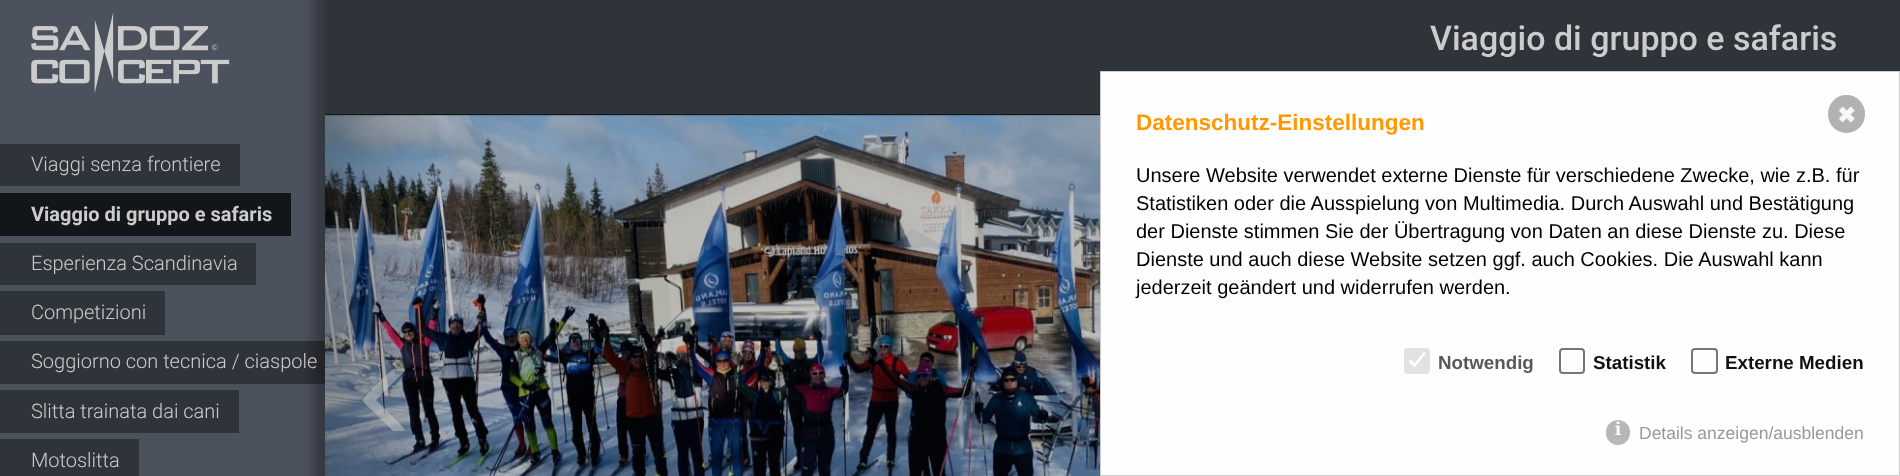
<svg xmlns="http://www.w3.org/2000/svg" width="1900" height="476">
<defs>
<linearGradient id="g1" gradientUnits="userSpaceOnUse" x1="325" y1="379" x2="450" y2="379"><stop offset="0" stop-color="#000" stop-opacity="0.25"/><stop offset="1" stop-color="#000" stop-opacity="0"/></linearGradient>
</defs>
<rect width="100%" height="100%" fill="#4c525d"/>
<rect y="341" width="325" height="43" fill="#2f343a"/>
<rect x="313" y="-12" width="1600" height="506" fill="#0000004d" filter="blur(6px)"/>
<rect x="325" width="1575" height="116" fill="#2f343a"/>
<text x="1430" y="50" style="font-family:Roboto;font-size:34px;font-weight:500;fill:#ccc">Viaggio di gruppo e safaris</text>
<rect x="325" y="114" width="775" height="1" fill="#131618"/>
<image x="325" y="115" width="775" height="361" href="media/1.png"/>
<rect x="325" y="115" width="114" height="361" fill="url(#g1)"/>
<path d="M394 369c11 0 15-3 6 7l-24 24l24 24c5 6 8 7 0 7h-7l-20-20c-2-2-11-9-10-11c0-2 8-9 10-11c2-3 19-20 21-20z" fill="#cccccc80"/>
<image x="31" y="13" width="199" height="81" href="media/2.png"/>
<rect y="144" width="240" height="42" fill="#2f343a"/>
<text x="31" y="171" style="font-family:Roboto;font-size:20px;font-weight:300;fill:#ccc">Viaggi senza frontiere</text>
<rect y="193" width="291" height="43" fill="#131618"/>
<text x="31" y="221" style="font-family:Roboto;font-size:20px;font-weight:bold;fill:#ccc">Viaggio di gruppo e safaris</text>
<rect y="243" width="256" height="42" fill="#2f343a"/>
<text x="31" y="270" style="font-family:Roboto;font-size:20px;font-weight:300;fill:#ccc">Esperienza Scandinavia</text>
<rect y="291" width="165" height="44" fill="#2f343a"/>
<text x="31" y="319" style="font-family:Roboto;font-size:20px;font-weight:300;fill:#ccc">Competizioni</text>
<text x="31" y="368" style="font-family:Roboto;font-size:20px;font-weight:300;fill:#ccc">Soggiorno con tecnica / ciaspole</text>
<rect y="390" width="239" height="43" fill="#2f343a"/>
<text x="31" y="418" style="font-family:Roboto;font-size:20px;font-weight:300;fill:#ccc">Slitta trainata dai cani</text>
<rect y="439" width="139" height="37" fill="#2f343a"/>
<text x="31" y="467" style="font-family:Roboto;font-size:20px;font-weight:300;fill:#ccc">Motoslitta</text>
<rect x="1100.5" y="71.5" width="799" height="404" fill="#fefefe" stroke="#cbcbcb"/>
<rect x="1829.5" y="96.5" width="34" height="35" rx="17" fill="#b2b2b2" stroke="#b2b2b2" stroke-width="3"/>
<text x="1837" y="123" style="font-family:DejaVu Sans;font-size:22.5px;font-weight:bold;fill:#f6f6f6">✖</text>
<text x="1136" y="130" style="font-family:Liberation Sans;font-size:22.5px;font-weight:bold;fill:#f90">Datenschutz-Einstellungen</text>
<text x="1136" y="182" style="font-family:Liberation Sans;font-size:20px;fill:#000">Unsere Website verwendet externe Dienste für verschiedene Zwecke, wie z.B. für</text>
<text x="1136" y="210" style="font-family:Liberation Sans;font-size:20px;fill:#000">Statistiken oder die Ausspielung von Multimedia. Durch Auswahl und Bestätigung</text>
<text x="1136" y="238" style="font-family:Liberation Sans;font-size:20px;fill:#000">der Dienste stimmen Sie der Übertragung von Daten an diese Dienste zu. Diese</text>
<text x="1136" y="266" style="font-family:Liberation Sans;font-size:20px;fill:#000">Dienste und auch diese Website setzen ggf. auch Cookies. Die Auswahl kann</text>
<text x="1136" y="294" style="font-family:Liberation Sans;font-size:20px;fill:#000">jederzeit geändert und widerrufen werden.</text>
<rect x="1404" y="348" width="26" height="26" rx="4" fill="#e2e2e2"/>
<path d="M1409.5 360.5l5 5l10.5-13" fill="none" stroke="#fff" stroke-width="2.6"/>
<text x="1438" y="369" style="font-family:Liberation Sans;font-size:18.75px;font-weight:bold;fill:#585858">Notwendig</text>
<rect x="1560" y="349" width="24" height="24" rx="3" fill="none" stroke="#767676" stroke-width="2"/>
<text x="1593" y="369" style="font-family:Liberation Sans;font-size:18.75px;font-weight:bold;fill:#111">Statistik</text>
<rect x="1692" y="349" width="25" height="24" rx="3" fill="none" stroke="#767676" stroke-width="2"/>
<text x="1725" y="369" style="font-family:Liberation Sans;font-size:18.75px;font-weight:bold;fill:#111">Externe Medien</text>
<rect x="1606" y="420" width="24" height="25" rx="12" fill="#b7b7b7"/>
<text x="1615" y="435" style="font-family:Noto Serif;font-size:17.5px;font-weight:bold;fill:#fefefe">i</text>
<text x="1639" y="439" style="font-family:Liberation Sans;font-size:17.5px;fill:#999">Details anzeigen/ausblenden</text>
</svg>
